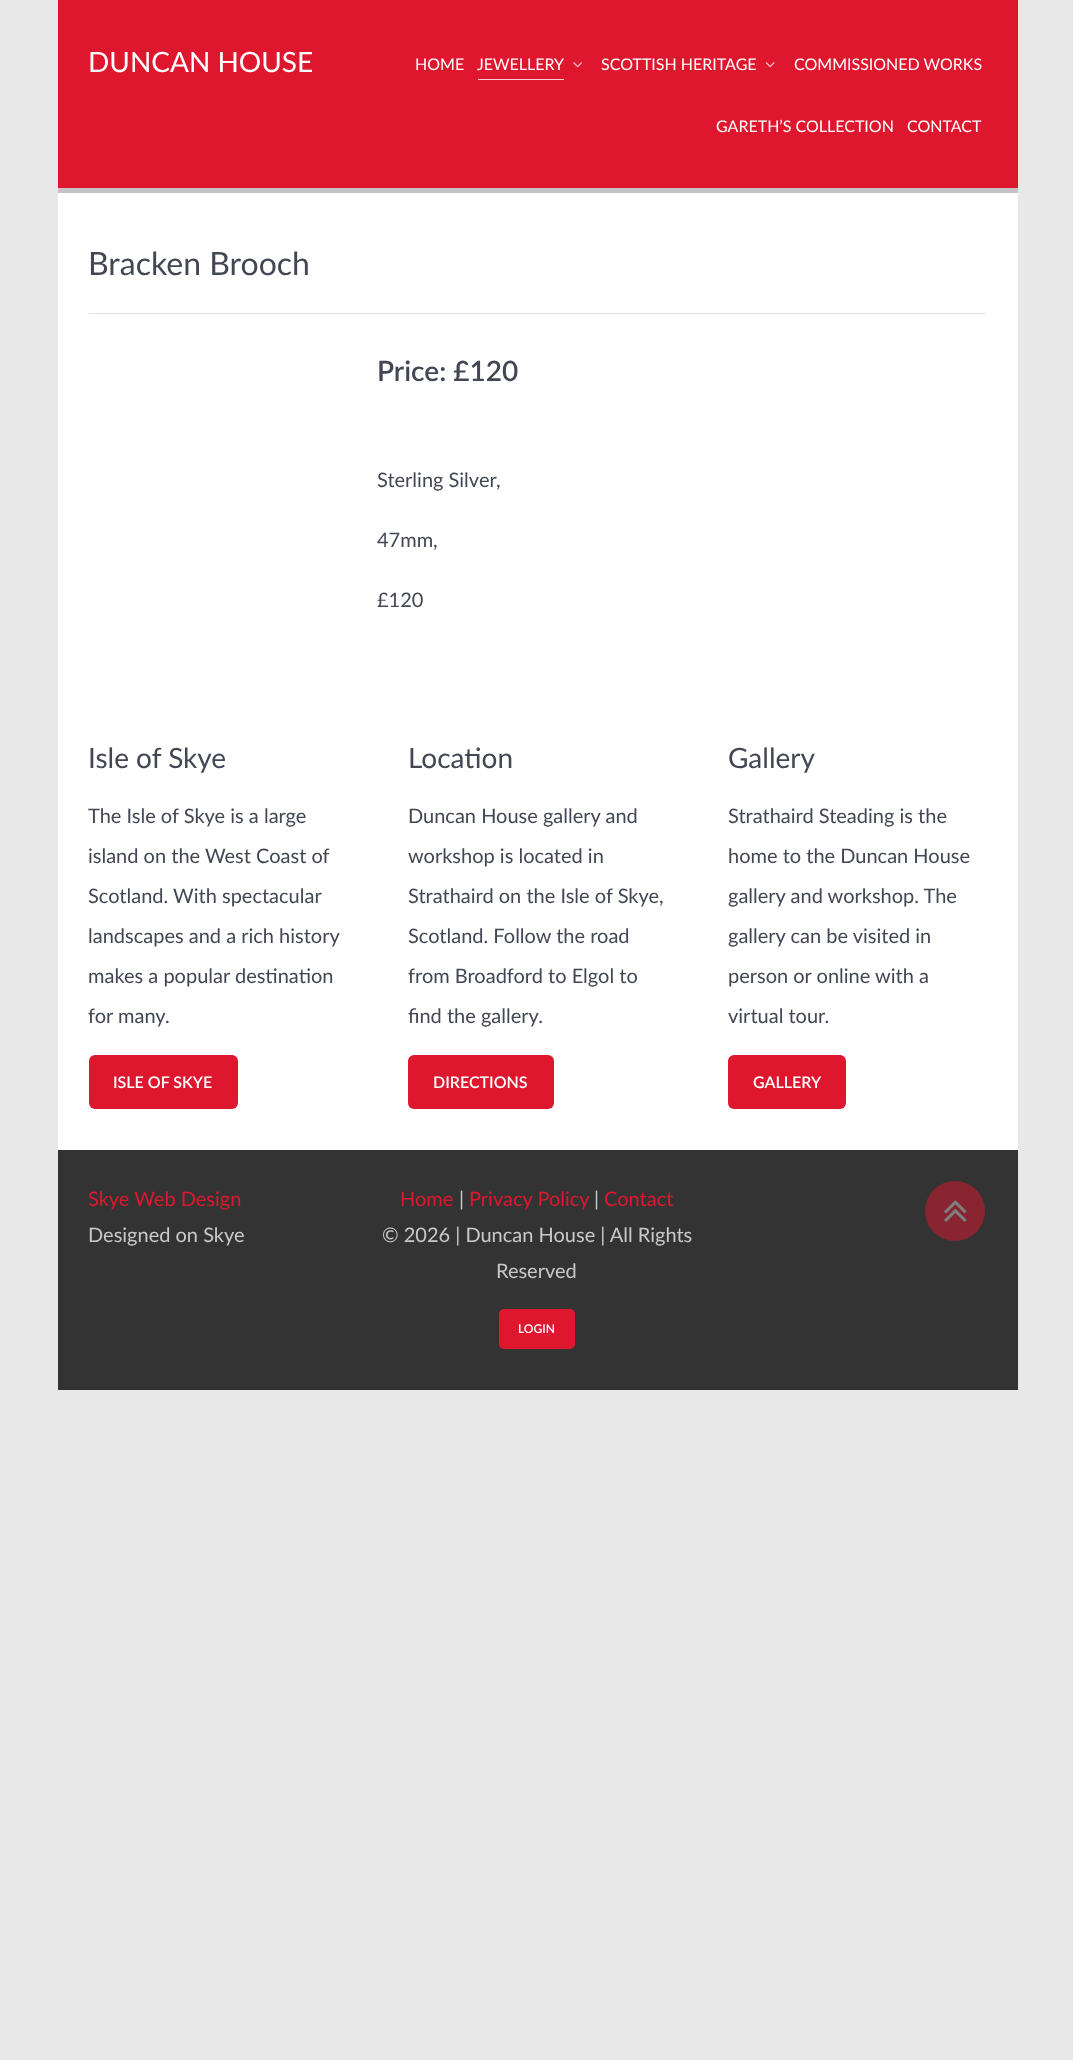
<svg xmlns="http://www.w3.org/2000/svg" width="1073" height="2060">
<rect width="100%" height="100%" fill="#e8e8e8"/>
<rect x="58" width="960" height="188" fill="#df172e"/>
<rect x="58" y="188" width="960" height="5" fill="#c3c3c3"/>
<text x="88" y="72" style="font-family:Lato;font-size:28px;fill:#fff">DUNCAN HOUSE</text>
<text x="415" y="70" style="font-family:Lato;font-size:16px;fill:#fff">HOME</text>
<path d="M478 79v1h86v-25v24z" fill="#f9d1d5"/>
<text x="477" y="70" style="font-family:Lato;font-size:16px;fill:#fff">JEWELLERY</text>
<image x="573" y="62" width="9" height="6" href="media/1.png"/>
<text x="601" y="70" style="font-family:Lato;font-size:16px;fill:#fff">SCOTTISH HERITAGE</text>
<image x="765" y="62" width="10" height="6" href="media/2.png"/>
<text x="794" y="70" style="font-family:Lato;font-size:16px;fill:#fff">COMMISSIONED WORKS</text>
<text x="716" y="132" style="font-family:Lato;font-size:16px;fill:#fff">GARETH’S COLLECTION</text>
<text x="907" y="132" style="font-family:Lato;font-size:16px;fill:#fff">CONTACT</text>
<rect x="58" y="193" width="960" height="957" fill="#fff"/>
<text x="88" y="275" style="font-family:Lato;font-size:32px;fill:#424753">Bracken Brooch</text>
<rect x="89" y="313" width="897" height="1" fill="#e0e0e5"/>
<text x="377" y="381" style="font-family:Lato;font-size:28px;font-weight:600;fill:#424753">Price: £120</text>
<text x="377" y="487" style="font-family:Lato;font-size:20px;fill:#424753">Sterling Silver,</text>
<text x="377" y="547" style="font-family:Lato;font-size:20px;fill:#424753">47mm,</text>
<text x="377" y="607" style="font-family:Lato;font-size:20px;fill:#424753">£120</text>
<text x="88" y="768" style="font-family:Lato;font-size:28px;fill:#424753">Isle of Skye</text>
<text x="88" y="823" style="font-family:Lato;font-size:20px;fill:#424753">The Isle of Skye is a large</text>
<text x="88" y="863" style="font-family:Lato;font-size:20px;fill:#424753">island on the West Coast of</text>
<text x="88" y="903" style="font-family:Lato;font-size:20px;fill:#424753">Scotland. With spectacular</text>
<text x="88" y="943" style="font-family:Lato;font-size:20px;fill:#424753">landscapes and a rich history</text>
<text x="88" y="983" style="font-family:Lato;font-size:20px;fill:#424753">makes a popular destination</text>
<text x="88" y="1023" style="font-family:Lato;font-size:20px;fill:#424753">for many.</text>
<rect x="89" y="1055" width="149" height="54" rx="6" fill="#df172e"/>
<text x="113" y="1088" style="font-family:Lato;font-size:16px;font-weight:600;fill:#fff">ISLE OF SKYE</text>
<text x="408" y="768" style="font-family:Lato;font-size:28px;fill:#424753">Location</text>
<text x="408" y="823" style="font-family:Lato;font-size:20px;fill:#424753">Duncan House gallery and</text>
<text x="408" y="863" style="font-family:Lato;font-size:20px;fill:#424753">workshop is located in</text>
<text x="408" y="903" style="font-family:Lato;font-size:20px;fill:#424753">Strathaird on the Isle of Skye,</text>
<text x="408" y="943" style="font-family:Lato;font-size:20px;fill:#424753">Scotland. Follow the road</text>
<text x="408" y="983" style="font-family:Lato;font-size:20px;fill:#424753">from Broadford to Elgol to</text>
<text x="408" y="1023" style="font-family:Lato;font-size:20px;fill:#424753">find the gallery.</text>
<rect x="408" y="1055" width="146" height="54" rx="6" fill="#df172e"/>
<text x="433" y="1088" style="font-family:Lato;font-size:16px;font-weight:600;fill:#fff">DIRECTIONS</text>
<text x="728" y="768" style="font-family:Lato;font-size:28px;fill:#424753">Gallery</text>
<text x="728" y="823" style="font-family:Lato;font-size:20px;fill:#424753">Strathaird Steading is the</text>
<text x="728" y="863" style="font-family:Lato;font-size:20px;fill:#424753">home to the Duncan House</text>
<text x="728" y="903" style="font-family:Lato;font-size:20px;fill:#424753">gallery and workshop. The</text>
<text x="728" y="943" style="font-family:Lato;font-size:20px;fill:#424753">gallery can be visited in</text>
<text x="728" y="983" style="font-family:Lato;font-size:20px;fill:#424753">person or online with a</text>
<text x="728" y="1023" style="font-family:Lato;font-size:20px;fill:#424753">virtual tour.</text>
<rect x="728" y="1055" width="118" height="54" rx="6" fill="#df172e"/>
<text x="753" y="1088" style="font-family:Lato;font-size:16px;font-weight:600;fill:#fff">GALLERY</text>
<rect x="58" y="1150" width="960" height="240" fill="#333"/>
<text x="88" y="1206" style="font-family:Lato;font-size:20px;fill:#df172e">Skye Web Design</text>
<text x="88" y="1242" style="font-family:Lato;font-size:20px;fill:#c9c9c9">Designed on Skye</text>
<text x="400" y="1206" style="font-family:Lato;font-size:20px;fill:#df172e">Home</text>
<text x="459" y="1206" style="font-family:Lato;font-size:20px;fill:#c9c9c9">|</text>
<text x="469" y="1206" style="font-family:Lato;font-size:20px;fill:#df172e">Privacy Policy</text>
<text x="594" y="1206" style="font-family:Lato;font-size:20px;fill:#c9c9c9">|</text>
<text x="604" y="1206" style="font-family:Lato;font-size:20px;fill:#df172e">Contact</text>
<text x="382" y="1242" style="font-family:Lato;font-size:20px;fill:#c9c9c9">© 2026 | Duncan House | All Rights</text>
<text x="496" y="1278" style="font-family:Lato;font-size:20px;fill:#c9c9c9">Reserved</text>
<rect x="499" y="1309" width="76" height="40" rx="5" fill="#df172e"/>
<text x="518" y="1333" style="font-family:Lato;font-size:12px;font-weight:600;fill:#fff">LOGIN</text>
<circle cx="955" cy="1211" r="30" fill="#892531"/>
<image x="944" y="1200" width="23" height="22" href="media/3.png"/>
</svg>
